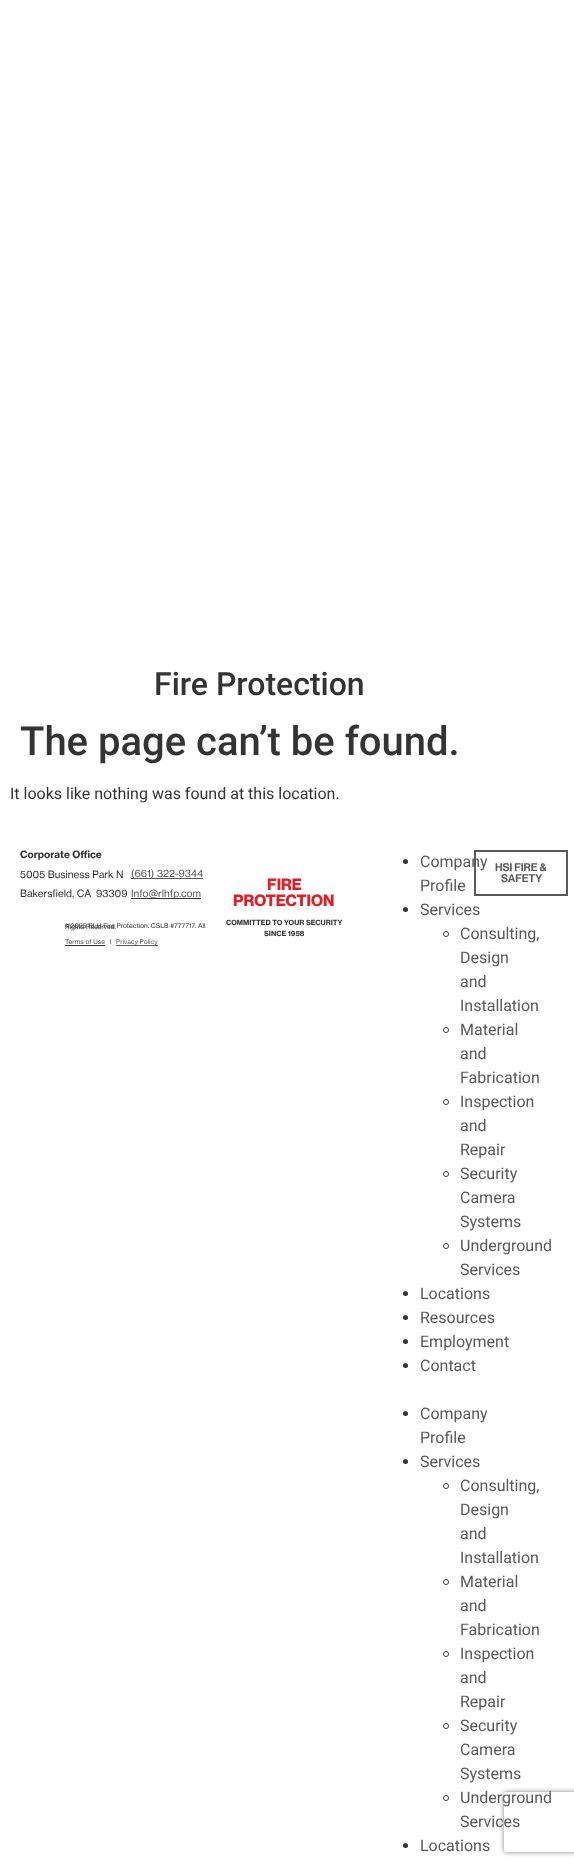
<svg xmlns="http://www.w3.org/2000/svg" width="574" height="1866">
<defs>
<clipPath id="clip1"><path d="M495 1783h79v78h-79zm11 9h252c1 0 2 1 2 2v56c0 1-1 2-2 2h-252c-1 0-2-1-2-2v-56c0-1 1-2 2-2z" clip-rule="evenodd"/></clipPath>
</defs>
<rect width="100%" height="100%" fill="#fff"/>
<text x="154" y="695" style="font-family:Roboto;font-size:32px;font-weight:500;fill:#333">Fire Protection</text>
<text x="20" y="755" style="font-family:Roboto;font-size:40px;font-weight:500;fill:#333">The page can’t be found.</text>
<text x="10" y="799" style="font-family:Roboto;font-size:16px;fill:#333">It looks like nothing was found at this location.</text>
<text x="20" y="858" style="font-family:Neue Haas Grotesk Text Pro;font-size:10px;font-weight:bold;fill:#333">Corporate Office</text>
<text x="20" y="878" style="font-family:Neue Haas Grotesk Text Pro;font-size:10px;fill:#333">5005 Business Park N</text>
<text x="20" y="897" style="font-family:Neue Haas Grotesk Text Pro;font-size:10px;fill:#333">Bakersfield, CA</text>
<text x="96" y="897" style="font-family:Neue Haas Grotesk Text Pro;font-size:10px;fill:#333">93309</text>
<rect x="131" y="878" width="72" height="1" fill="#58595b"/>
<text x="131" y="877" style="font-family:Neue Haas Grotesk Text Pro;font-size:10px;fill:#58595b">(661) 322-9344</text>
<rect x="131" y="898" width="70" height="1" fill="#333"/>
<text x="131" y="897" style="font-family:Neue Haas Grotesk Text Pro;font-size:10px;fill:#58595b">Info@rlhfp.com</text>
<text x="65" y="928" style="font-family:Neue Haas Grotesk Text Pro;font-size:6.5px;fill:#333">©2025 RLH Fire Protection. CSLB #777717. All</text>
<text x="65" y="929" style="font-family:Neue Haas Grotesk Text Pro;font-size:6.5px;fill:#333">Rights Reserved.</text>
<text x="65" y="944" style="font-family:Neue Haas Grotesk Text Pro;font-size:6.5px;fill:#58595b">Terms of Use</text>
<rect x="65" y="945" width="40" height="1" fill="#333"/>
<text x="110" y="944" style="font-family:Neue Haas Grotesk Text Pro;font-size:6.5px;fill:#333">l</text>
<rect x="116" y="945" width="42" height="1" fill="#58595b"/>
<text x="116" y="944" style="font-family:Neue Haas Grotesk Text Pro;font-size:6.5px;fill:#58595b">Privacy Policy</text>
<text x="267" y="890" style="font-family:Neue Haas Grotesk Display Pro;font-size:16px;font-weight:bold;fill:#e01f26">FIRE</text>
<text x="233" y="906" style="font-family:Neue Haas Grotesk Display Pro;font-size:16px;font-weight:bold;fill:#e01f26">PROTECTION</text>
<text x="226" y="925" style="font-family:Neue Haas Grotesk Text Pro;font-size:7px;font-weight:bold;fill:#333">COMMITTED TO YOUR SECURITY</text>
<text x="264" y="936" style="font-family:Neue Haas Grotesk Text Pro;font-size:7px;font-weight:bold;fill:#333">SINCE 1958</text>
<circle cx="405.5" cy="861.5" r="2.5" fill="#333"/>
<text x="420" y="867" style="font-family:Roboto;font-size:16px;fill:#58595b">Company</text>
<text x="420" y="891" style="font-family:Roboto;font-size:16px;fill:#58595b">Profile</text>
<circle cx="405.5" cy="909.5" r="2.5" fill="#333"/>
<text x="420" y="915" style="font-family:Roboto;font-size:16px;fill:#58595b">Services</text>
<circle cx="446" cy="934" r="2.5" fill="none" stroke="#333"/>
<text x="460" y="939" style="font-family:Roboto;font-size:16px;fill:#58595b">Consulting,</text>
<text x="460" y="963" style="font-family:Roboto;font-size:16px;fill:#58595b">Design</text>
<text x="460" y="987" style="font-family:Roboto;font-size:16px;fill:#58595b">and</text>
<text x="460" y="1011" style="font-family:Roboto;font-size:16px;fill:#58595b">Installation</text>
<circle cx="446" cy="1030" r="2.5" fill="none" stroke="#333"/>
<text x="460" y="1035" style="font-family:Roboto;font-size:16px;fill:#58595b">Material</text>
<text x="460" y="1059" style="font-family:Roboto;font-size:16px;fill:#58595b">and</text>
<text x="460" y="1083" style="font-family:Roboto;font-size:16px;fill:#58595b">Fabrication</text>
<circle cx="446" cy="1102" r="2.5" fill="none" stroke="#333"/>
<text x="460" y="1107" style="font-family:Roboto;font-size:16px;fill:#58595b">Inspection</text>
<text x="460" y="1131" style="font-family:Roboto;font-size:16px;fill:#58595b">and</text>
<text x="460" y="1155" style="font-family:Roboto;font-size:16px;fill:#58595b">Repair</text>
<circle cx="446" cy="1174" r="2.5" fill="none" stroke="#333"/>
<text x="460" y="1179" style="font-family:Roboto;font-size:16px;fill:#58595b">Security</text>
<text x="460" y="1203" style="font-family:Roboto;font-size:16px;fill:#58595b">Camera</text>
<text x="460" y="1227" style="font-family:Roboto;font-size:16px;fill:#58595b">Systems</text>
<circle cx="446" cy="1246" r="2.5" fill="none" stroke="#333"/>
<text x="460" y="1251" style="font-family:Roboto;font-size:16px;fill:#58595b">Underground</text>
<text x="460" y="1275" style="font-family:Roboto;font-size:16px;fill:#58595b">Services</text>
<circle cx="405.5" cy="1293.5" r="2.5" fill="#333"/>
<text x="420" y="1299" style="font-family:Roboto;font-size:16px;fill:#58595b">Locations</text>
<circle cx="405.5" cy="1317.5" r="2.5" fill="#333"/>
<text x="420" y="1323" style="font-family:Roboto;font-size:16px;fill:#58595b">Resources</text>
<circle cx="405.5" cy="1341.5" r="2.5" fill="#333"/>
<text x="420" y="1347" style="font-family:Roboto;font-size:16px;fill:#58595b">Employment</text>
<circle cx="405.5" cy="1365.5" r="2.5" fill="#333"/>
<text x="420" y="1371" style="font-family:Roboto;font-size:16px;fill:#58595b">Contact</text>
<circle cx="405.5" cy="1413.5" r="2.5" fill="#333"/>
<text x="420" y="1419" style="font-family:Roboto;font-size:16px;fill:#58595b">Company</text>
<text x="420" y="1443" style="font-family:Roboto;font-size:16px;fill:#58595b">Profile</text>
<circle cx="405.5" cy="1461.5" r="2.5" fill="#333"/>
<text x="420" y="1467" style="font-family:Roboto;font-size:16px;fill:#58595b">Services</text>
<circle cx="446" cy="1486" r="2.5" fill="none" stroke="#333"/>
<text x="460" y="1491" style="font-family:Roboto;font-size:16px;fill:#58595b">Consulting,</text>
<text x="460" y="1515" style="font-family:Roboto;font-size:16px;fill:#58595b">Design</text>
<text x="460" y="1539" style="font-family:Roboto;font-size:16px;fill:#58595b">and</text>
<text x="460" y="1563" style="font-family:Roboto;font-size:16px;fill:#58595b">Installation</text>
<circle cx="446" cy="1582" r="2.5" fill="none" stroke="#333"/>
<text x="460" y="1587" style="font-family:Roboto;font-size:16px;fill:#58595b">Material</text>
<text x="460" y="1611" style="font-family:Roboto;font-size:16px;fill:#58595b">and</text>
<text x="460" y="1635" style="font-family:Roboto;font-size:16px;fill:#58595b">Fabrication</text>
<circle cx="446" cy="1654" r="2.5" fill="none" stroke="#333"/>
<text x="460" y="1659" style="font-family:Roboto;font-size:16px;fill:#58595b">Inspection</text>
<text x="460" y="1683" style="font-family:Roboto;font-size:16px;fill:#58595b">and</text>
<text x="460" y="1707" style="font-family:Roboto;font-size:16px;fill:#58595b">Repair</text>
<circle cx="446" cy="1726" r="2.5" fill="none" stroke="#333"/>
<text x="460" y="1731" style="font-family:Roboto;font-size:16px;fill:#58595b">Security</text>
<text x="460" y="1755" style="font-family:Roboto;font-size:16px;fill:#58595b">Camera</text>
<text x="460" y="1779" style="font-family:Roboto;font-size:16px;fill:#58595b">Systems</text>
<circle cx="446" cy="1798" r="2.5" fill="none" stroke="#333"/>
<text x="460" y="1803" style="font-family:Roboto;font-size:16px;fill:#58595b">Underground</text>
<text x="460" y="1827" style="font-family:Roboto;font-size:16px;fill:#58595b">Services</text>
<circle cx="405.5" cy="1845.5" r="2.5" fill="#333"/>
<text x="420" y="1851" style="font-family:Roboto;font-size:16px;fill:#58595b">Locations</text>
<rect x="475" y="851" width="92" height="44" fill="none" stroke="#58595b" stroke-width="2"/>
<text x="495" y="871" style="font-family:Neue Haas Grotesk Display Pro;font-size:11px;font-weight:500;fill:#58595b">HSI FIRE &amp;</text>
<text x="501" y="882" style="font-family:Neue Haas Grotesk Display Pro;font-size:11px;font-weight:500;fill:#58595b">SAFETY</text>
<g clip-path="url(#clip1)">
<rect x="504" y="1792" width="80" height="60" rx="2" fill="#808080" filter="blur(2.5px)"/>
</g>
</svg>
